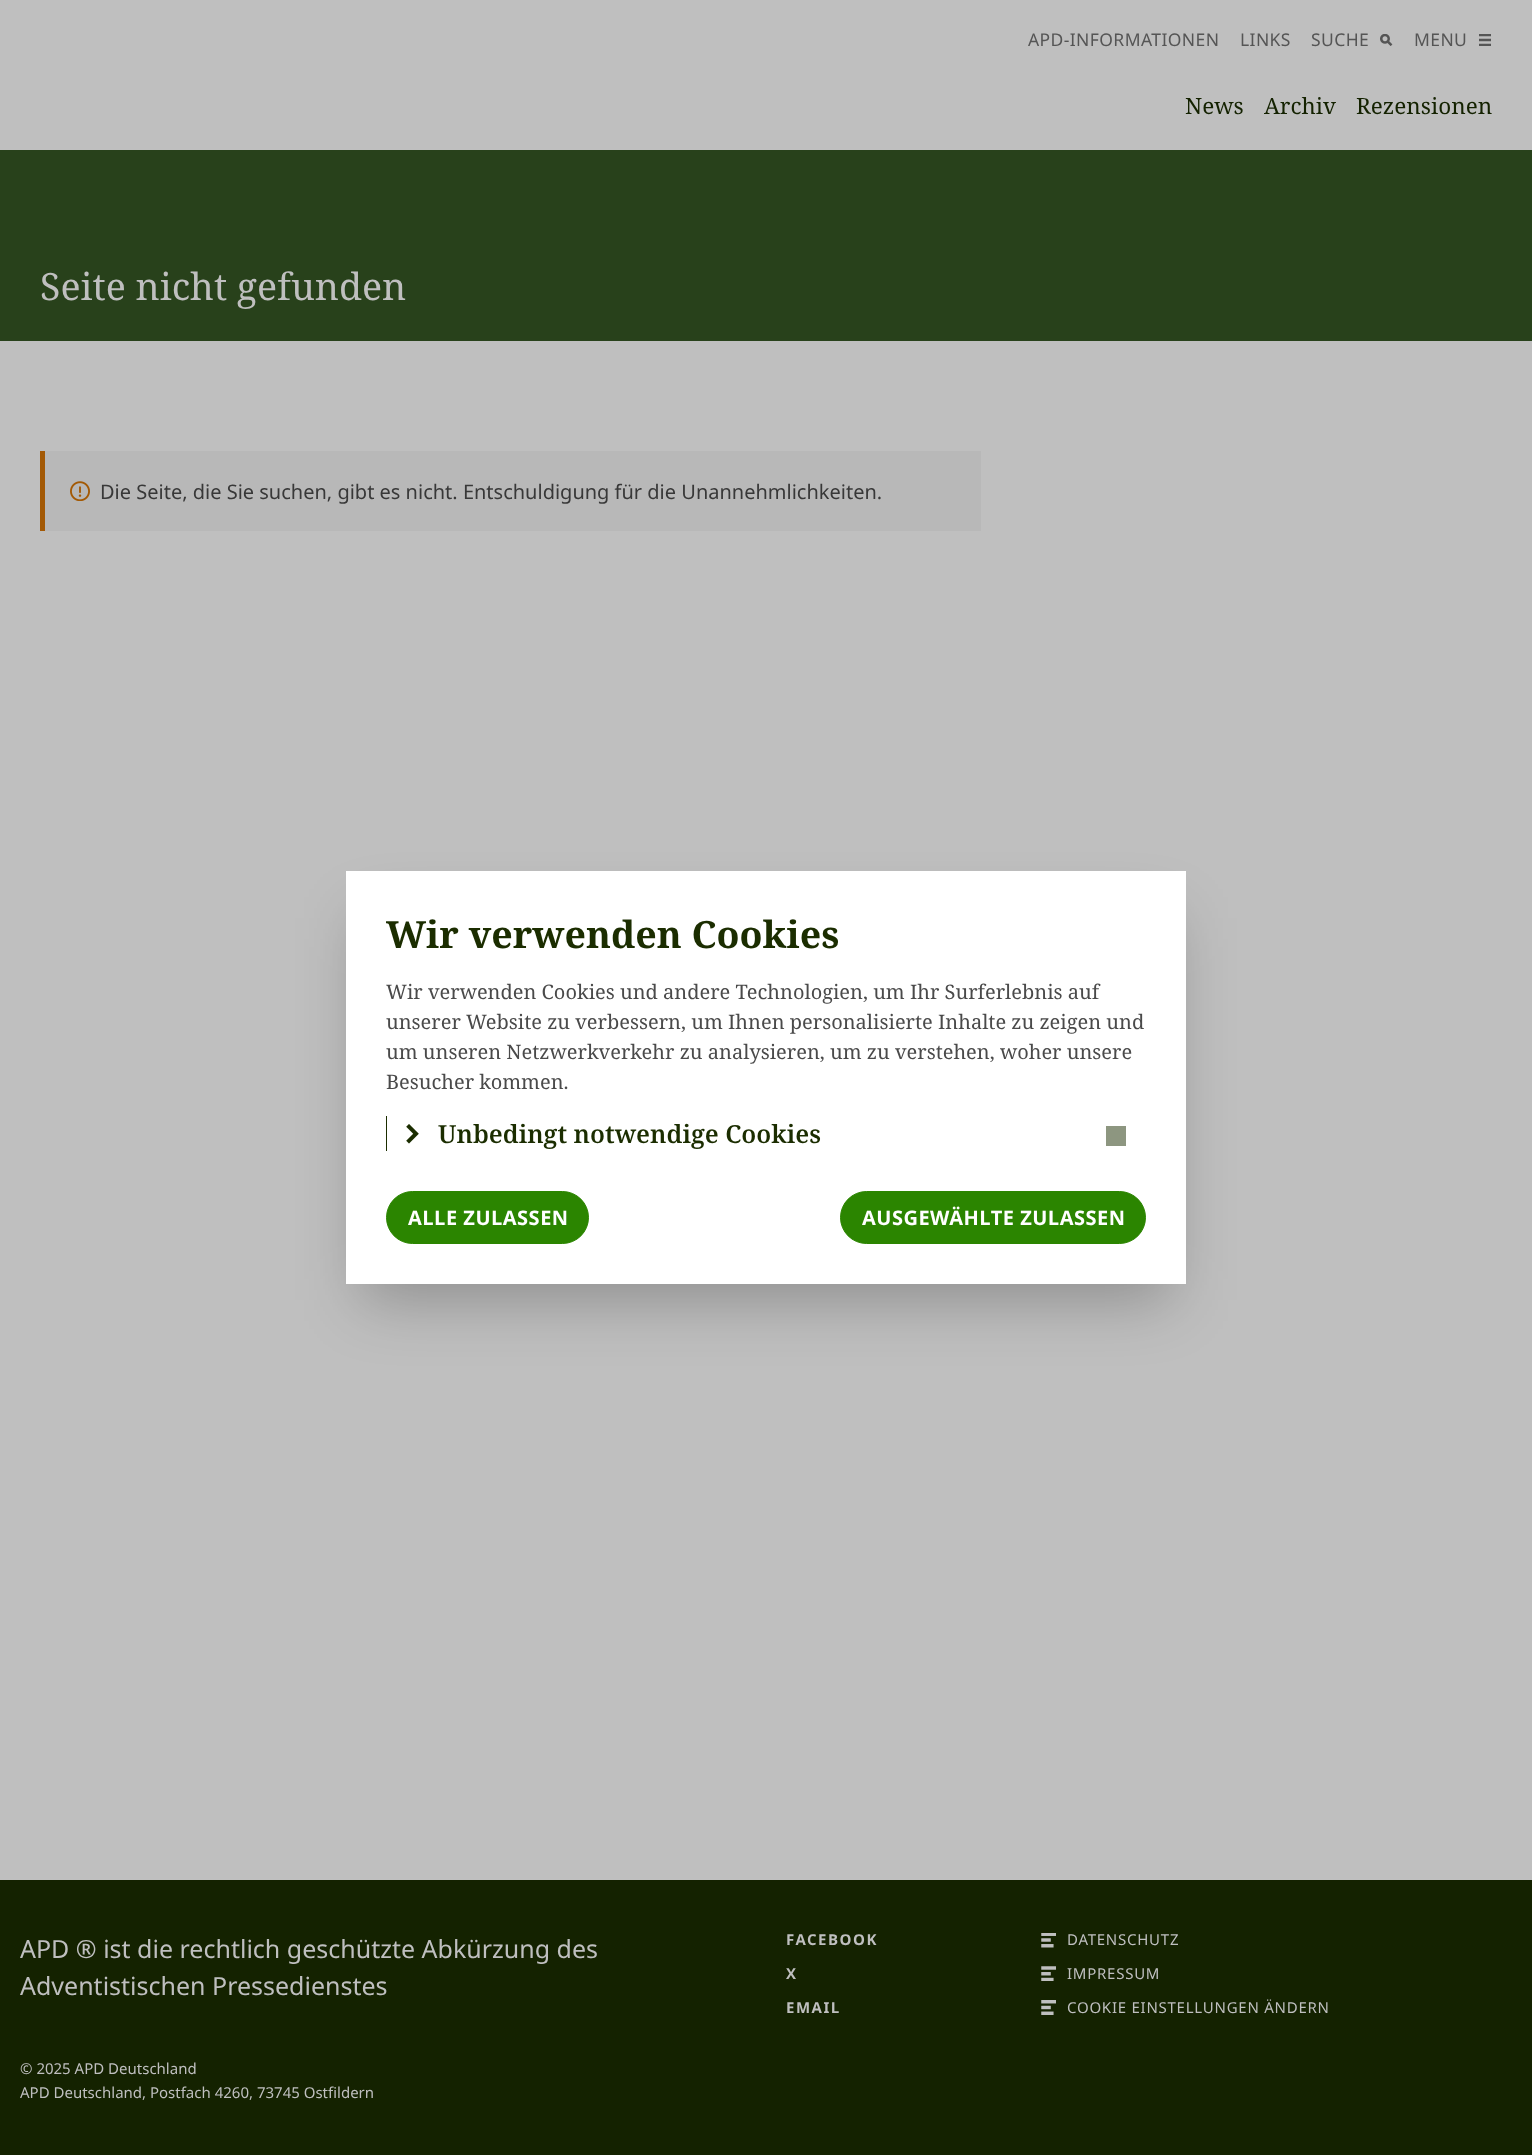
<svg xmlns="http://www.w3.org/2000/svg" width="1532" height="2155">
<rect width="100%" height="100%" fill="#bfbfbf"/>
<text x="1028" y="46" style="font-family:Noto Sans;font-size:17.5px;letter-spacing:0.4px;fill:#555">APD-INFORMATIONEN</text>
<text x="1240" y="46" style="font-family:Noto Sans;font-size:17.5px;letter-spacing:0.4px;fill:#555">LINKS</text>
<text x="1311" y="46" style="font-family:Noto Sans;font-size:17.5px;letter-spacing:0.4px;fill:#555">SUCHE</text>
<image x="1380" y="34" width="13" height="12" href="media/1.png"/>
<text x="1414" y="46" style="font-family:Noto Sans;font-size:17.5px;letter-spacing:0.4px;fill:#555">MENU</text>
<image x="1479" y="34" width="12" height="12" href="media/2.png"/>
<text x="1185" y="114" style="font-family:Noto Serif;font-size:22.5px;fill:#142200">News</text>
<text x="1264" y="114" style="font-family:Noto Serif;font-size:22.5px;fill:#142200">Archiv</text>
<text x="1356" y="114" style="font-family:Noto Serif;font-size:22.5px;fill:#142200">Rezensionen</text>
<rect y="150" width="1532" height="191" fill="#28411b"/>
<text x="40" y="300" style="font-family:Noto Serif;font-size:37.5px;fill:#bfbfbf">Seite nicht gefunden</text>
<rect x="45" y="451" width="936" height="80" fill="#b8b8b8"/>
<rect x="40" y="451" width="5" height="80" fill="#a35905"/>
<image x="70" y="481" width="20" height="20" href="media/3.png"/>
<text x="100" y="499" style="font-family:Noto Sans;font-size:20px;fill:#383838">Die Seite, die Sie suchen, gibt es nicht. Entschuldigung für die Unannehmlichkeiten.</text>
<rect y="1880" width="1532" height="275" fill="#142200"/>
<text x="20" y="1958" style="font-family:Noto Sans;font-size:25px;fill:#bfbfbf">APD ® ist die rechtlich geschützte Abkürzung des</text>
<text x="20" y="1995" style="font-family:Noto Sans;font-size:25px;fill:#bfbfbf">Adventistischen Pressedienstes</text>
<text x="786" y="1945" style="font-family:Noto Sans;font-size:15px;font-weight:bold;letter-spacing:1.5px;fill:#bfbfbf">FACEBOOK</text>
<text x="786" y="1979" style="font-family:Noto Sans;font-size:15px;font-weight:bold;letter-spacing:1.5px;fill:#bfbfbf">X</text>
<text x="786" y="2013" style="font-family:Noto Sans;font-size:15px;font-weight:bold;letter-spacing:1.5px;fill:#bfbfbf">EMAIL</text>
<image x="1041" y="1933" width="15" height="15" href="media/4.png"/>
<text x="1067" y="1945" style="font-family:Noto Sans;font-size:15px;letter-spacing:0.75px;fill:#bfbfbf">DATENSCHUTZ</text>
<image x="1041" y="1966" width="15" height="15" href="media/5.png"/>
<text x="1067" y="1979" style="font-family:Noto Sans;font-size:15px;letter-spacing:0.75px;fill:#bfbfbf">IMPRESSUM</text>
<image x="1041" y="2000" width="15" height="15" href="media/6.png"/>
<text x="1067" y="2013" style="font-family:Noto Sans;font-size:15px;letter-spacing:0.75px;fill:#bfbfbf">COOKIE EINSTELLUNGEN ÄNDERN</text>
<text x="20" y="2074" style="font-family:Noto Sans;font-size:15px;fill:#bfbfbf">© 2025 APD Deutschland</text>
<text x="20" y="2098" style="font-family:Noto Sans;font-size:15px;fill:#bfbfbf">APD Deutschland, Postfach 4260, 73745 Ostfildern</text>
<rect x="361" y="918" width="810" height="382" fill="#00000040" filter="blur(31px)"/>
<rect x="346" y="871" width="840" height="413" fill="#fff"/>
<text x="386" y="948" style="font-family:Noto Serif;font-size:37.5px;font-weight:bold;fill:#1b2d00">Wir verwenden Cookies</text>
<text x="386" y="999" style="font-family:Noto Serif;font-size:20px;fill:#4a4a4a">Wir verwenden Cookies und andere Technologien, um Ihr Surferlebnis auf</text>
<text x="386" y="1029" style="font-family:Noto Serif;font-size:20px;fill:#4a4a4a">unserer Website zu verbessern, um Ihnen personalisierte Inhalte zu zeigen und</text>
<text x="386" y="1059" style="font-family:Noto Serif;font-size:20px;fill:#4a4a4a">um unseren Netzwerkverkehr zu analysieren, um zu verstehen, woher unsere</text>
<text x="386" y="1089" style="font-family:Noto Serif;font-size:20px;fill:#4a4a4a">Besucher kommen.</text>
<rect x="386" y="1116" width="1" height="35" fill="#1b2d00"/>
<image x="406" y="1124" width="13" height="20" href="media/7.png"/>
<text x="438" y="1143" style="font-family:Noto Serif;font-size:25px;font-weight:600;fill:#1b2d00">Unbedingt notwendige Cookies</text>
<rect x="1106" y="1126" width="20" height="20" fill="#8d9680"/>
<rect x="386.5" y="1191.5" width="202" height="52" rx="26" fill="#2b8500" stroke="#2b8500"/>
<text x="408" y="1225" style="font-family:Noto Sans;font-size:20px;font-weight:bold;letter-spacing:0.5px;fill:#fff">ALLE ZULASSEN</text>
<rect x="840.5" y="1191.5" width="305" height="52" rx="26" fill="#2b8500" stroke="#2b8500"/>
<text x="862" y="1225" style="font-family:Noto Sans;font-size:20px;font-weight:bold;letter-spacing:0.5px;fill:#fff">AUSGEWÄHLTE ZULASSEN</text>
</svg>
